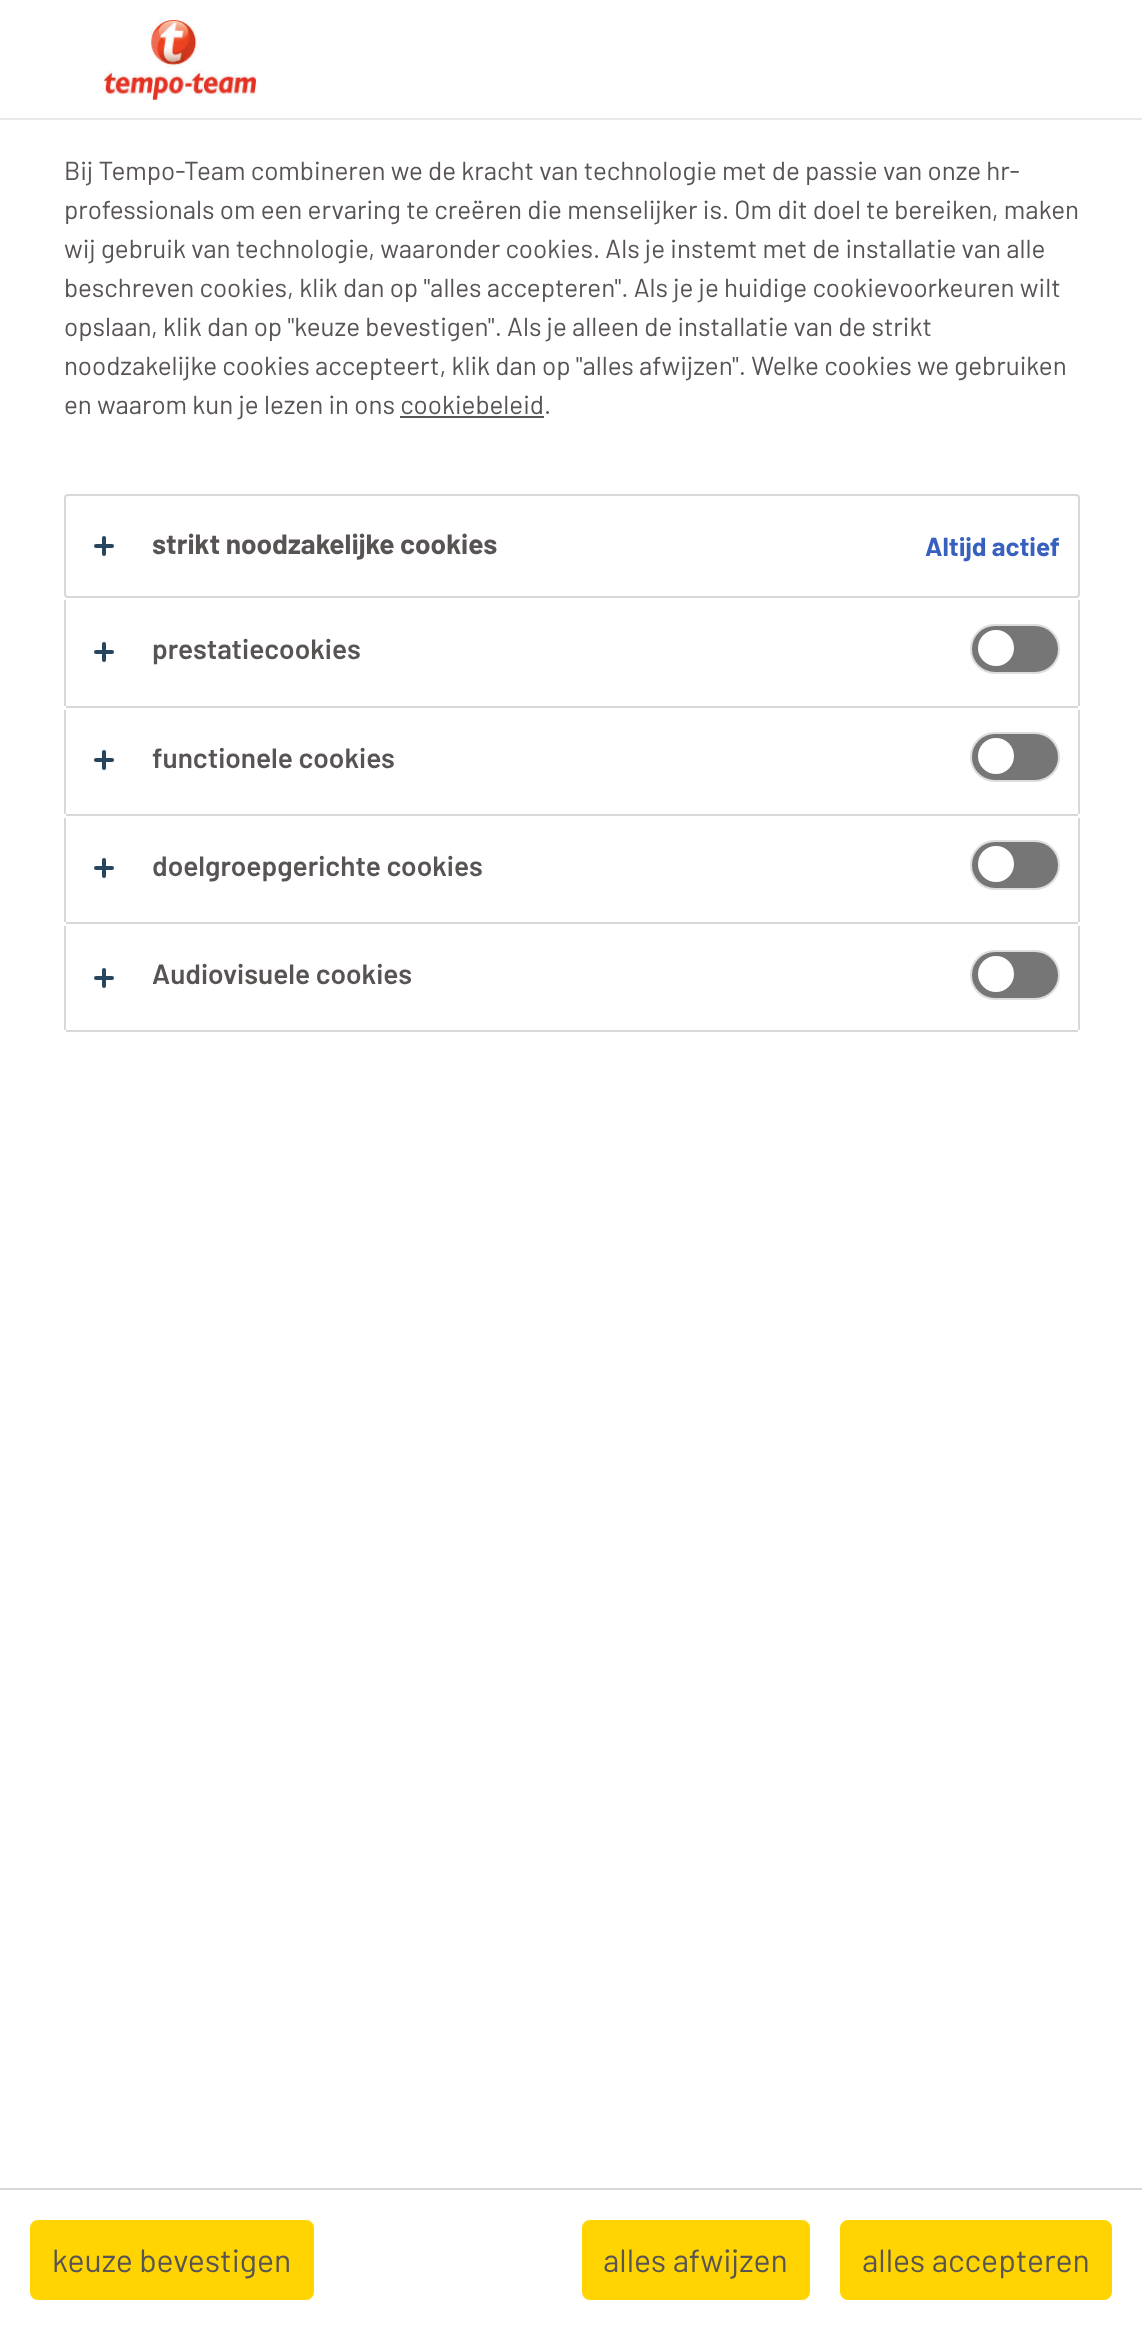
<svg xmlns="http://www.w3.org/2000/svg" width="1142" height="2336">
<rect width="100%" height="100%" fill="#fff"/>
<rect y="118" width="1142" height="2" fill="#e9e9e9"/>
<image x="104" y="20" width="153" height="80" href="media/1.png"/>
<text x="64" y="180" style="font-family:Barlow;font-size:26px;fill:#585453">Bij Tempo-Team combineren we de kracht van technologie met de passie van onze hr-</text>
<text x="64" y="219" style="font-family:Barlow;font-size:26px;fill:#585453">professionals om een ervaring te creëren die menselijker is. Om dit doel te bereiken, maken</text>
<text x="64" y="258" style="font-family:Barlow;font-size:26px;fill:#585453">wij gebruik van technologie, waaronder cookies. Als je instemt met de installatie van alle</text>
<text x="64" y="297" style="font-family:Barlow;font-size:26px;fill:#585453">beschreven cookies, klik dan op "alles accepteren". Als je je huidige cookievoorkeuren wilt</text>
<text x="64" y="336" style="font-family:Barlow;font-size:26px;fill:#585453">opslaan, klik dan op "keuze bevestigen". Als je alleen de installatie van de strikt</text>
<text x="64" y="375" style="font-family:Barlow;font-size:26px;fill:#585453">noodzakelijke cookies accepteert, klik dan op "alles afwijzen". Welke cookies we gebruiken</text>
<text x="64" y="414" style="font-family:Barlow;font-size:26px;fill:#585453">en waarom kun je lezen in ons cookiebeleid.</text>
<rect x="400" y="416" width="144" height="2" fill="#585453"/>
<rect x="65" y="495" width="1014" height="102" rx="3" fill="none" stroke="#d8d8d8" stroke-width="2"/>
<rect x="102" y="536" width="4" height="20" rx="2" fill="#27455c"/>
<rect x="94" y="544" width="20" height="4" rx="2" fill="#27455c"/>
<text x="152" y="554" style="font-family:Barlow;font-size:28px;font-weight:bold;fill:#585453">strikt noodzakelijke cookies</text>
<text x="925" y="556" style="font-family:Barlow;font-size:26px;font-weight:bold;fill:#3860be">Altijd actief</text>
<rect x="1078" y="600" width="2" height="106" fill="#d8d8d8"/>
<rect x="66" y="706" width="1012" height="2" fill="#d8d8d8"/>
<rect x="64" y="600" width="2" height="106" fill="#d8d8d8"/>
<rect x="102" y="642" width="4" height="20" rx="2" fill="#27455c"/>
<rect x="94" y="650" width="20" height="4" rx="2" fill="#27455c"/>
<text x="152" y="659" style="font-family:Barlow;font-size:28px;font-weight:600;fill:#585453">prestatiecookies</text>
<rect x="971" y="625" width="88" height="48" rx="24" fill="#767676" stroke="#ddd" stroke-width="2"/>
<circle cx="996" cy="648" r="18" fill="#fff"/>
<rect x="1078" y="710" width="2" height="104" fill="#d8d8d8"/>
<rect x="66" y="814" width="1012" height="2" fill="#d8d8d8"/>
<rect x="64" y="710" width="2" height="104" fill="#d8d8d8"/>
<rect x="102" y="750" width="4" height="20" rx="2" fill="#27455c"/>
<rect x="94" y="758" width="20" height="4" rx="2" fill="#27455c"/>
<text x="152" y="768" style="font-family:Barlow;font-size:28px;font-weight:600;fill:#585453">functionele cookies</text>
<rect x="971" y="733" width="88" height="48" rx="24" fill="#767676" stroke="#ddd" stroke-width="2"/>
<circle cx="996" cy="756" r="18" fill="#fff"/>
<rect x="1078" y="818" width="2" height="104" fill="#d8d8d8"/>
<rect x="66" y="922" width="1012" height="2" fill="#d8d8d8"/>
<rect x="64" y="818" width="2" height="104" fill="#d8d8d8"/>
<rect x="102" y="858" width="4" height="20" rx="2" fill="#27455c"/>
<rect x="94" y="866" width="20" height="4" rx="2" fill="#27455c"/>
<text x="152" y="876" style="font-family:Barlow;font-size:28px;font-weight:600;fill:#585453">doelgroepgerichte cookies</text>
<rect x="971" y="841" width="88" height="48" rx="24" fill="#767676" stroke="#ddd" stroke-width="2"/>
<circle cx="996" cy="864" r="18" fill="#fff"/>
<rect x="1078" y="926" width="2" height="104" fill="#d8d8d8"/>
<rect x="66" y="1030" width="1012" height="2" fill="#d8d8d8"/>
<rect x="64" y="926" width="2" height="104" fill="#d8d8d8"/>
<rect x="102" y="968" width="4" height="20" rx="2" fill="#27455c"/>
<rect x="94" y="976" width="20" height="4" rx="2" fill="#27455c"/>
<text x="152" y="984" style="font-family:Barlow;font-size:28px;font-weight:600;fill:#585453">Audiovisuele cookies</text>
<rect x="971" y="951" width="88" height="48" rx="24" fill="#767676" stroke="#ddd" stroke-width="2"/>
<circle cx="996" cy="974" r="18" fill="#fff"/>
<rect y="2188" width="1142" height="2" fill="#d8d8d8"/>
<rect x="31" y="2221" width="282" height="78" rx="7" fill="#ffd400" stroke="#ffd400" stroke-width="2"/>
<text x="52" y="2272" style="font-family:Barlow;font-size:32px;fill:#585453">keuze bevestigen</text>
<rect x="583" y="2221" width="226" height="78" rx="7" fill="#ffd400" stroke="#ffd400" stroke-width="2"/>
<text x="603" y="2272" style="font-family:Barlow;font-size:32px;fill:#585453">alles afwijzen</text>
<rect x="841" y="2221" width="270" height="78" rx="7" fill="#ffd400" stroke="#ffd400" stroke-width="2"/>
<text x="862" y="2272" style="font-family:Barlow;font-size:32px;fill:#585453">alles accepteren</text>
</svg>
